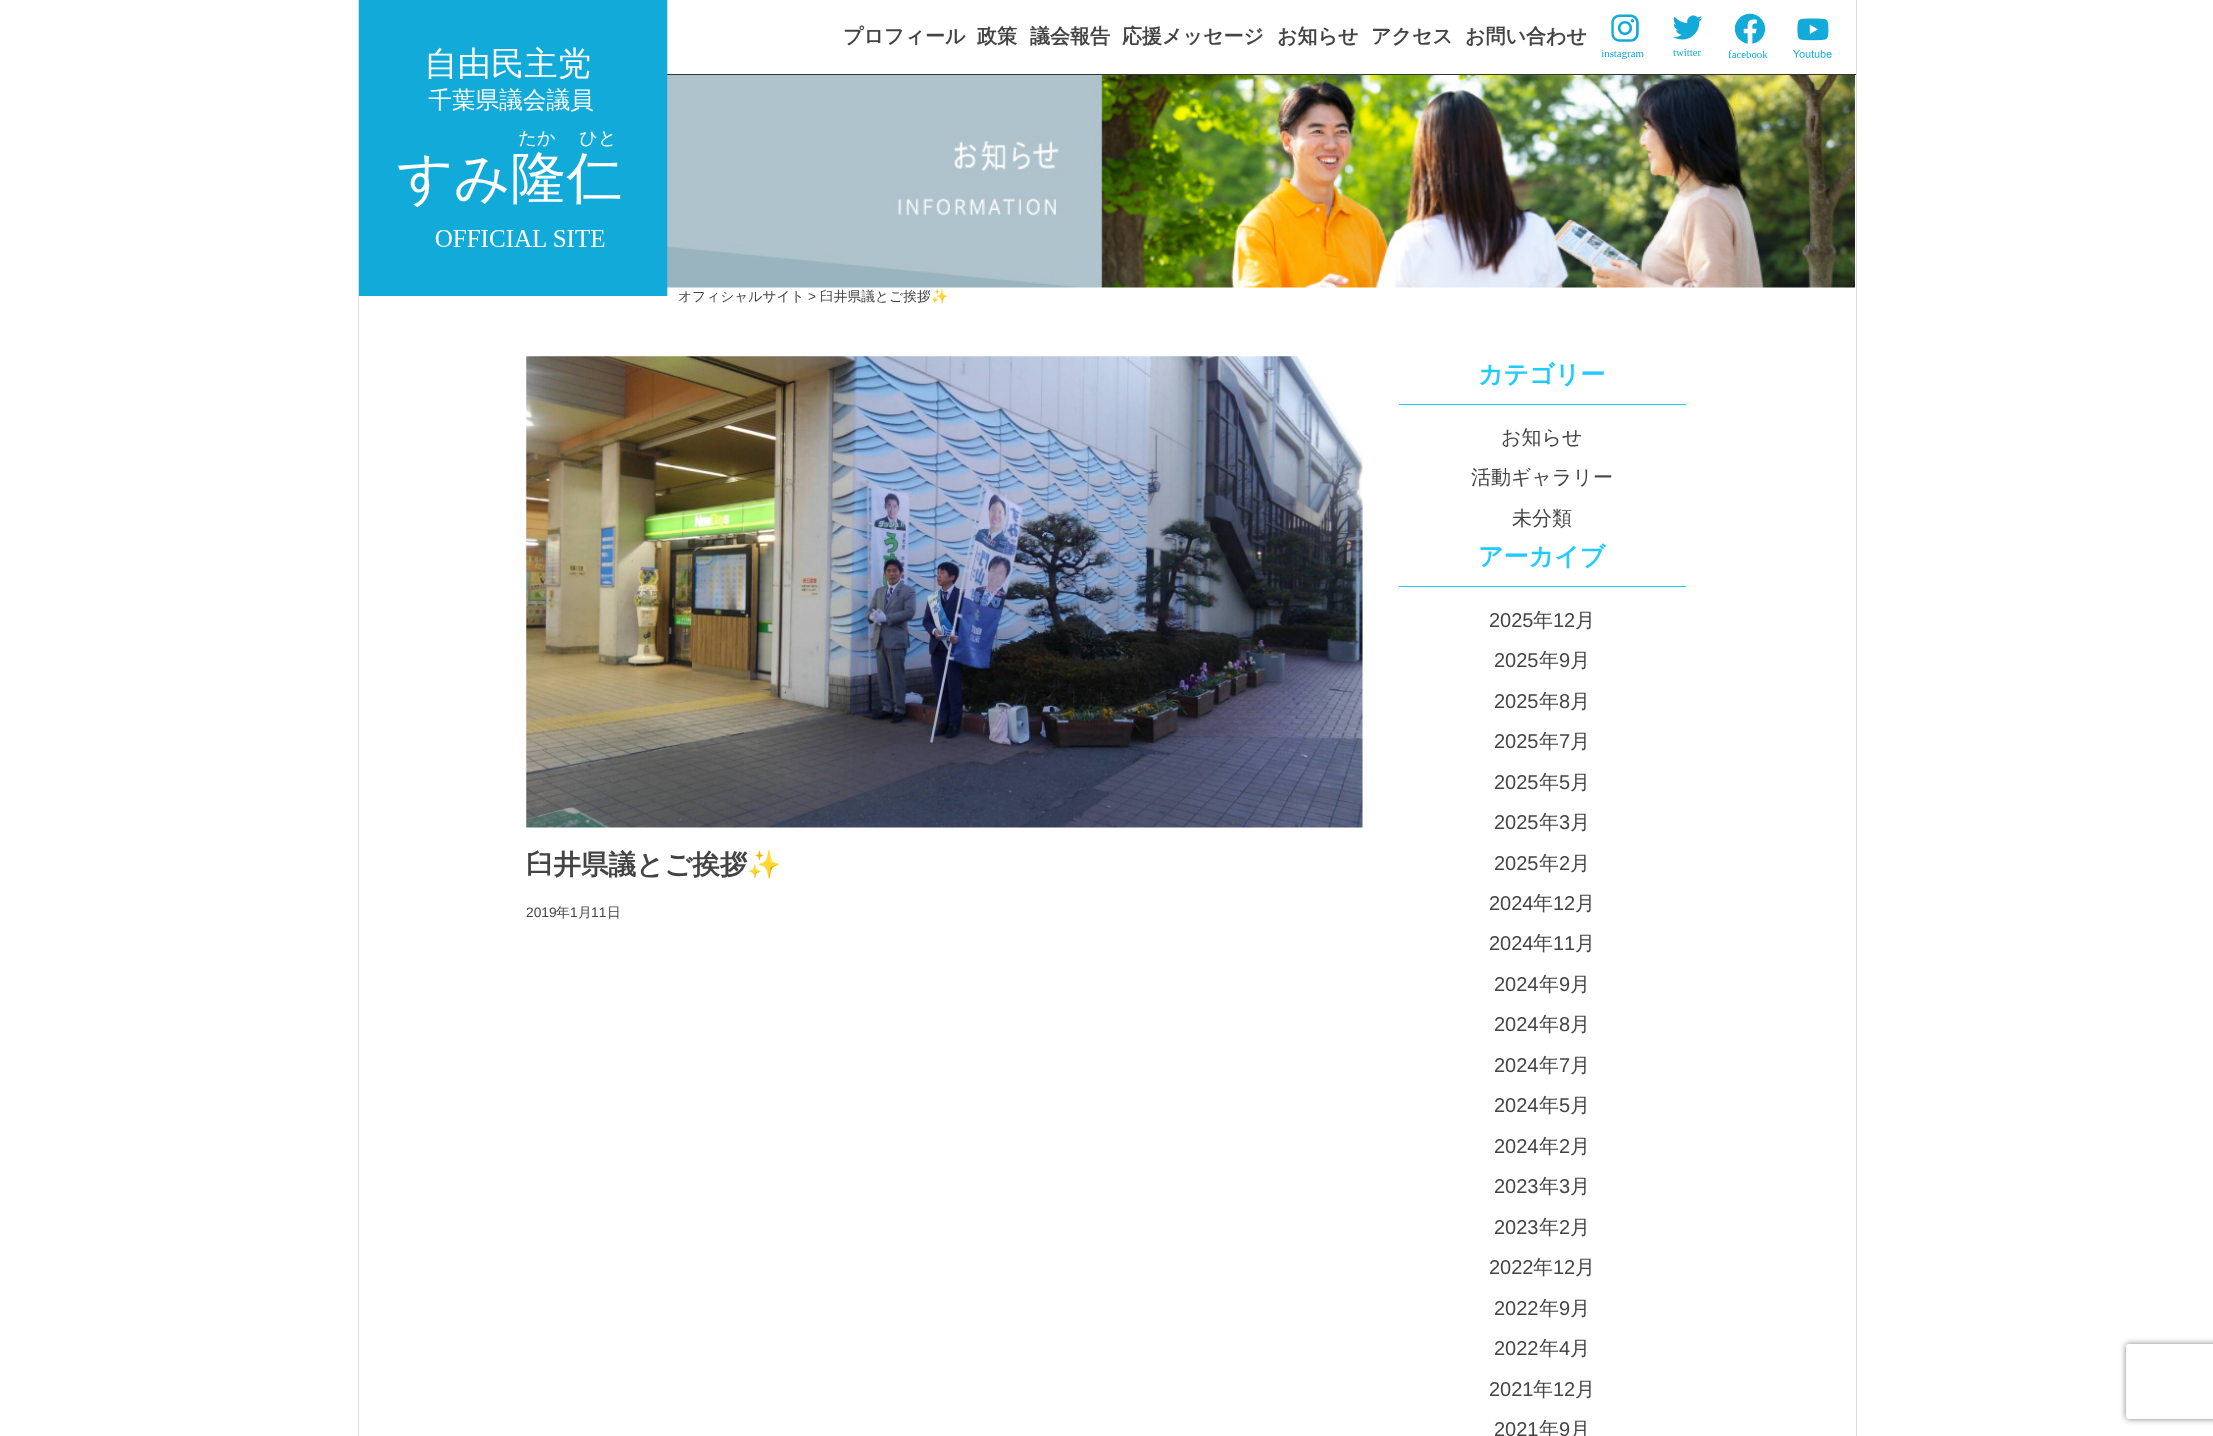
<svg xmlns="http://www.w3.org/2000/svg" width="2213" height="1436">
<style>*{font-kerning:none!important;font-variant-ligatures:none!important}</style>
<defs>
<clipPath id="clip1"><path d="M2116 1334h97v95h-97zm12.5 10h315c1.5 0 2.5 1 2.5 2.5v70c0 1.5-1 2.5-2.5 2.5h-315c-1.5 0-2.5-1-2.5-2.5v-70c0-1.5 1-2.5 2.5-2.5z" clip-rule="evenodd"/></clipPath>
</defs>
<rect width="100%" height="100%" fill="#fff"/>
<rect x="1856" width="1" height="1436" fill="#dcdcdc"/>
<rect x="358" width="1" height="1436" fill="#dcdcdc"/>
<rect x="667" y="74" width="1189" height="1" fill="#333"/>
<image x="667" y="75" width="1188" height="213" href="media/6.png"/>
<image x="359" y="0" width="309" height="296" href="media/1.png"/>
<text x="843" y="43" style="font-family:WenQuanYi Zen Hei;font-size:20px;font-weight:bold;fill:#444">プロフィール</text>
<text x="977" y="43" style="font-family:WenQuanYi Zen Hei;font-size:20px;font-weight:bold;fill:#444">政策</text>
<text x="1030" y="43" style="font-family:WenQuanYi Zen Hei;font-size:20px;font-weight:bold;fill:#444">議会報告</text>
<text x="1122" y="43" style="font-family:WenQuanYi Zen Hei;font-size:20px;font-weight:bold;fill:#444">応援メッセージ</text>
<text x="1277" y="43" style="font-family:WenQuanYi Zen Hei;font-size:20px;font-weight:bold;fill:#444">お知らせ</text>
<text x="1371" y="43" style="font-family:WenQuanYi Zen Hei;font-size:20px;font-weight:bold;fill:#444">アクセス</text>
<text x="1465" y="43" style="font-family:WenQuanYi Zen Hei;font-size:20px;font-weight:bold;fill:#444">お問い合わせ</text>
<image x="1601" y="14" width="43" height="45" href="media/2.png"/>
<image x="1672" y="15" width="31" height="41" href="media/3.png"/>
<image x="1728" y="13" width="40" height="45" href="media/4.png"/>
<image x="1793" y="18" width="39" height="40" href="media/5.png"/>
<text x="678" y="301" style="font-family:WenQuanYi Zen Hei;font-size:13.75px;font-weight:500;fill:#444">オフィシャルサイト</text>
<text x="808" y="301" style="font-family:Liberation Sans;font-size:13.75px;fill:#444">&gt;</text>
<text x="820" y="301" style="font-family:WenQuanYi Zen Hei;font-size:13.75px;font-weight:500;fill:#444">臼井県議とご挨拶</text>
<text x="931" y="301" style="font-family:Noto Color Emoji;font-size:13.75px;fill:#444">✨</text>
<image x="526" y="356" width="837" height="472" href="media/7.png"/>
<text x="526" y="874" style="font-family:WenQuanYi Zen Hei;font-size:27.5px;font-weight:bold;fill:#444">臼井県議とご挨拶</text>
<text x="747" y="874" style="font-family:Noto Color Emoji;font-size:27.5px;font-weight:bold;fill:#444">✨</text>
<text x="526" y="917" style="font-family:Liberation Sans;font-size:13.75px;fill:#444">2019</text>
<text x="556" y="917" style="font-family:WenQuanYi Zen Hei;font-size:13.75px;font-weight:500;fill:#444">年</text>
<text x="570" y="917" style="font-family:Liberation Sans;font-size:13.75px;fill:#444">1</text>
<text x="578" y="917" style="font-family:WenQuanYi Zen Hei;font-size:13.75px;font-weight:500;fill:#444">月</text>
<text x="591" y="917" style="font-family:Liberation Sans;font-size:13.75px;fill:#444">11</text>
<text x="607" y="917" style="font-family:WenQuanYi Zen Hei;font-size:13.75px;font-weight:500;fill:#444">日</text>
<rect x="1399" y="404" width="287" height="1" fill="#1fcbff"/>
<text x="1478" y="383" style="font-family:WenQuanYi Zen Hei;font-size:25px;font-weight:bold;fill:#1fcbff">カテゴリー</text>
<text x="1501" y="444" style="font-family:WenQuanYi Zen Hei;font-size:20px;font-weight:500;fill:#444">お知らせ</text>
<text x="1471" y="484" style="font-family:WenQuanYi Zen Hei;font-size:20px;font-weight:500;fill:#444">活動ギャラリー</text>
<text x="1512" y="525" style="font-family:WenQuanYi Zen Hei;font-size:20px;font-weight:500;fill:#444">未分類</text>
<rect x="1399" y="586" width="287" height="1" fill="#1fcbff"/>
<text x="1478" y="565" style="font-family:WenQuanYi Zen Hei;font-size:25px;font-weight:bold;fill:#1fcbff">アーカイブ</text>
<text x="1489" y="627" style="font-family:Liberation Sans;font-size:20px;fill:#444">2025</text>
<text x="1533" y="627" style="font-family:WenQuanYi Zen Hei;font-size:20px;font-weight:500;fill:#444">年</text>
<text x="1553" y="627" style="font-family:Liberation Sans;font-size:20px;fill:#444">12</text>
<text x="1575" y="627" style="font-family:WenQuanYi Zen Hei;font-size:20px;font-weight:500;fill:#444">月</text>
<text x="1494" y="667" style="font-family:Liberation Sans;font-size:20px;fill:#444">2025</text>
<text x="1539" y="667" style="font-family:WenQuanYi Zen Hei;font-size:20px;font-weight:500;fill:#444">年</text>
<text x="1559" y="667" style="font-family:Liberation Sans;font-size:20px;fill:#444">9</text>
<text x="1570" y="667" style="font-family:WenQuanYi Zen Hei;font-size:20px;font-weight:500;fill:#444">月</text>
<text x="1494" y="708" style="font-family:Liberation Sans;font-size:20px;fill:#444">2025</text>
<text x="1539" y="708" style="font-family:WenQuanYi Zen Hei;font-size:20px;font-weight:500;fill:#444">年</text>
<text x="1559" y="708" style="font-family:Liberation Sans;font-size:20px;fill:#444">8</text>
<text x="1570" y="708" style="font-family:WenQuanYi Zen Hei;font-size:20px;font-weight:500;fill:#444">月</text>
<text x="1494" y="748" style="font-family:Liberation Sans;font-size:20px;fill:#444">2025</text>
<text x="1539" y="748" style="font-family:WenQuanYi Zen Hei;font-size:20px;font-weight:500;fill:#444">年</text>
<text x="1559" y="748" style="font-family:Liberation Sans;font-size:20px;fill:#444">7</text>
<text x="1570" y="748" style="font-family:WenQuanYi Zen Hei;font-size:20px;font-weight:500;fill:#444">月</text>
<text x="1494" y="789" style="font-family:Liberation Sans;font-size:20px;fill:#444">2025</text>
<text x="1539" y="789" style="font-family:WenQuanYi Zen Hei;font-size:20px;font-weight:500;fill:#444">年</text>
<text x="1559" y="789" style="font-family:Liberation Sans;font-size:20px;fill:#444">5</text>
<text x="1570" y="789" style="font-family:WenQuanYi Zen Hei;font-size:20px;font-weight:500;fill:#444">月</text>
<text x="1494" y="829" style="font-family:Liberation Sans;font-size:20px;fill:#444">2025</text>
<text x="1539" y="829" style="font-family:WenQuanYi Zen Hei;font-size:20px;font-weight:500;fill:#444">年</text>
<text x="1559" y="829" style="font-family:Liberation Sans;font-size:20px;fill:#444">3</text>
<text x="1570" y="829" style="font-family:WenQuanYi Zen Hei;font-size:20px;font-weight:500;fill:#444">月</text>
<text x="1494" y="870" style="font-family:Liberation Sans;font-size:20px;fill:#444">2025</text>
<text x="1539" y="870" style="font-family:WenQuanYi Zen Hei;font-size:20px;font-weight:500;fill:#444">年</text>
<text x="1559" y="870" style="font-family:Liberation Sans;font-size:20px;fill:#444">2</text>
<text x="1570" y="870" style="font-family:WenQuanYi Zen Hei;font-size:20px;font-weight:500;fill:#444">月</text>
<text x="1489" y="910" style="font-family:Liberation Sans;font-size:20px;fill:#444">2024</text>
<text x="1533" y="910" style="font-family:WenQuanYi Zen Hei;font-size:20px;font-weight:500;fill:#444">年</text>
<text x="1553" y="910" style="font-family:Liberation Sans;font-size:20px;fill:#444">12</text>
<text x="1575" y="910" style="font-family:WenQuanYi Zen Hei;font-size:20px;font-weight:500;fill:#444">月</text>
<text x="1489" y="950" style="font-family:Liberation Sans;font-size:20px;fill:#444">2024</text>
<text x="1533" y="950" style="font-family:WenQuanYi Zen Hei;font-size:20px;font-weight:500;fill:#444">年</text>
<text x="1553" y="950" style="font-family:Liberation Sans;font-size:20px;fill:#444">11</text>
<text x="1575" y="950" style="font-family:WenQuanYi Zen Hei;font-size:20px;font-weight:500;fill:#444">月</text>
<text x="1494" y="991" style="font-family:Liberation Sans;font-size:20px;fill:#444">2024</text>
<text x="1539" y="991" style="font-family:WenQuanYi Zen Hei;font-size:20px;font-weight:500;fill:#444">年</text>
<text x="1559" y="991" style="font-family:Liberation Sans;font-size:20px;fill:#444">9</text>
<text x="1570" y="991" style="font-family:WenQuanYi Zen Hei;font-size:20px;font-weight:500;fill:#444">月</text>
<text x="1494" y="1031" style="font-family:Liberation Sans;font-size:20px;fill:#444">2024</text>
<text x="1539" y="1031" style="font-family:WenQuanYi Zen Hei;font-size:20px;font-weight:500;fill:#444">年</text>
<text x="1559" y="1031" style="font-family:Liberation Sans;font-size:20px;fill:#444">8</text>
<text x="1570" y="1031" style="font-family:WenQuanYi Zen Hei;font-size:20px;font-weight:500;fill:#444">月</text>
<text x="1494" y="1072" style="font-family:Liberation Sans;font-size:20px;fill:#444">2024</text>
<text x="1539" y="1072" style="font-family:WenQuanYi Zen Hei;font-size:20px;font-weight:500;fill:#444">年</text>
<text x="1559" y="1072" style="font-family:Liberation Sans;font-size:20px;fill:#444">7</text>
<text x="1570" y="1072" style="font-family:WenQuanYi Zen Hei;font-size:20px;font-weight:500;fill:#444">月</text>
<text x="1494" y="1112" style="font-family:Liberation Sans;font-size:20px;fill:#444">2024</text>
<text x="1539" y="1112" style="font-family:WenQuanYi Zen Hei;font-size:20px;font-weight:500;fill:#444">年</text>
<text x="1559" y="1112" style="font-family:Liberation Sans;font-size:20px;fill:#444">5</text>
<text x="1570" y="1112" style="font-family:WenQuanYi Zen Hei;font-size:20px;font-weight:500;fill:#444">月</text>
<text x="1494" y="1153" style="font-family:Liberation Sans;font-size:20px;fill:#444">2024</text>
<text x="1539" y="1153" style="font-family:WenQuanYi Zen Hei;font-size:20px;font-weight:500;fill:#444">年</text>
<text x="1559" y="1153" style="font-family:Liberation Sans;font-size:20px;fill:#444">2</text>
<text x="1570" y="1153" style="font-family:WenQuanYi Zen Hei;font-size:20px;font-weight:500;fill:#444">月</text>
<text x="1494" y="1193" style="font-family:Liberation Sans;font-size:20px;fill:#444">2023</text>
<text x="1539" y="1193" style="font-family:WenQuanYi Zen Hei;font-size:20px;font-weight:500;fill:#444">年</text>
<text x="1559" y="1193" style="font-family:Liberation Sans;font-size:20px;fill:#444">3</text>
<text x="1570" y="1193" style="font-family:WenQuanYi Zen Hei;font-size:20px;font-weight:500;fill:#444">月</text>
<text x="1494" y="1234" style="font-family:Liberation Sans;font-size:20px;fill:#444">2023</text>
<text x="1539" y="1234" style="font-family:WenQuanYi Zen Hei;font-size:20px;font-weight:500;fill:#444">年</text>
<text x="1559" y="1234" style="font-family:Liberation Sans;font-size:20px;fill:#444">2</text>
<text x="1570" y="1234" style="font-family:WenQuanYi Zen Hei;font-size:20px;font-weight:500;fill:#444">月</text>
<text x="1489" y="1274" style="font-family:Liberation Sans;font-size:20px;fill:#444">2022</text>
<text x="1533" y="1274" style="font-family:WenQuanYi Zen Hei;font-size:20px;font-weight:500;fill:#444">年</text>
<text x="1553" y="1274" style="font-family:Liberation Sans;font-size:20px;fill:#444">12</text>
<text x="1575" y="1274" style="font-family:WenQuanYi Zen Hei;font-size:20px;font-weight:500;fill:#444">月</text>
<text x="1494" y="1315" style="font-family:Liberation Sans;font-size:20px;fill:#444">2022</text>
<text x="1539" y="1315" style="font-family:WenQuanYi Zen Hei;font-size:20px;font-weight:500;fill:#444">年</text>
<text x="1559" y="1315" style="font-family:Liberation Sans;font-size:20px;fill:#444">9</text>
<text x="1570" y="1315" style="font-family:WenQuanYi Zen Hei;font-size:20px;font-weight:500;fill:#444">月</text>
<text x="1494" y="1355" style="font-family:Liberation Sans;font-size:20px;fill:#444">2022</text>
<text x="1539" y="1355" style="font-family:WenQuanYi Zen Hei;font-size:20px;font-weight:500;fill:#444">年</text>
<text x="1559" y="1355" style="font-family:Liberation Sans;font-size:20px;fill:#444">4</text>
<text x="1570" y="1355" style="font-family:WenQuanYi Zen Hei;font-size:20px;font-weight:500;fill:#444">月</text>
<text x="1489" y="1396" style="font-family:Liberation Sans;font-size:20px;fill:#444">2021</text>
<text x="1533" y="1396" style="font-family:WenQuanYi Zen Hei;font-size:20px;font-weight:500;fill:#444">年</text>
<text x="1553" y="1396" style="font-family:Liberation Sans;font-size:20px;fill:#444">12</text>
<text x="1575" y="1396" style="font-family:WenQuanYi Zen Hei;font-size:20px;font-weight:500;fill:#444">月</text>
<text x="1494" y="1436" style="font-family:Liberation Sans;font-size:20px;fill:#444">2021</text>
<text x="1539" y="1436" style="font-family:WenQuanYi Zen Hei;font-size:20px;font-weight:500;fill:#444">年</text>
<text x="1559" y="1436" style="font-family:Liberation Sans;font-size:20px;fill:#444">9</text>
<text x="1570" y="1436" style="font-family:WenQuanYi Zen Hei;font-size:20px;font-weight:500;fill:#444">月</text>
<g clip-path="url(#clip1)">
<rect x="2126" y="1344" width="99" height="75" rx="2.5" fill="#808080" filter="blur(3px)"/>
</g>
</svg>
